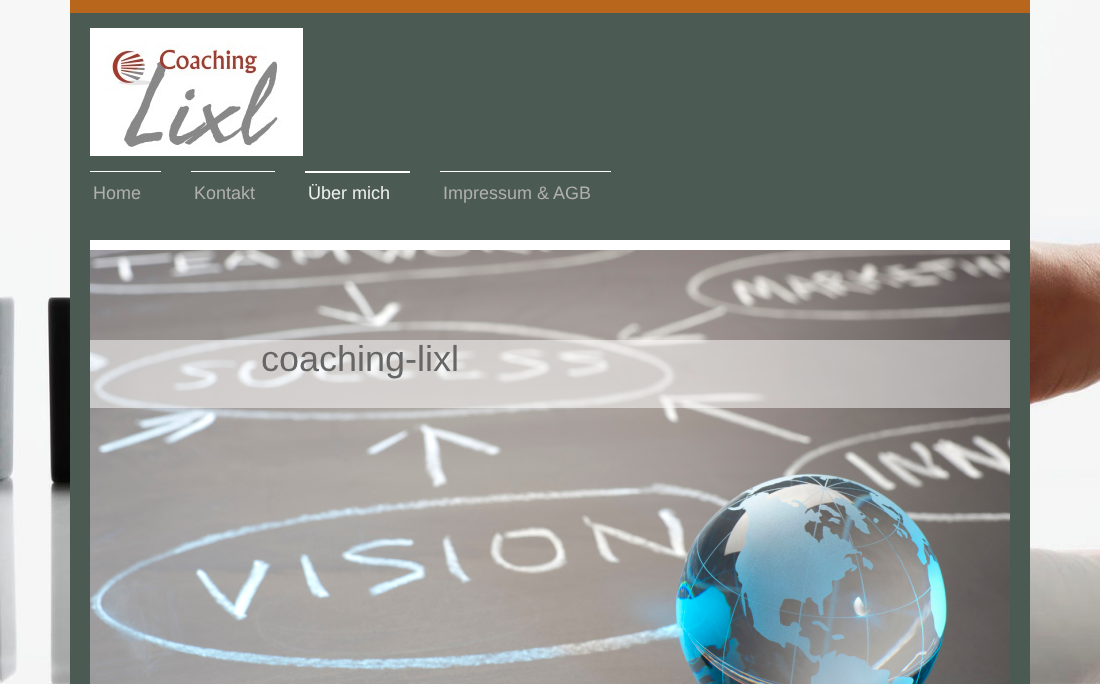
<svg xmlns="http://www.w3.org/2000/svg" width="1100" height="684">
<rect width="100%" height="100%" fill="#fff"/>
<image x="0" y="0" width="1100" height="684" href="media/1.png"/>
<rect x="70" y="13" width="960" height="671" fill="#4c5a54"/>
<rect x="70" width="960" height="13" fill="#b7661b"/>
<image x="90" y="28" width="213" height="128" href="media/2.png"/>
<rect x="90" y="171" width="71" height="1" fill="#fff"/>
<text x="93" y="199" style="font-family:Liberation Sans;font-size:18px;fill:#afafaf">Home</text>
<rect x="191" y="171" width="84" height="1" fill="#fff"/>
<text x="194" y="199" style="font-family:Liberation Sans;font-size:18px;fill:#afafaf">Kontakt</text>
<rect x="305" y="171" width="105" height="2" fill="#fff"/>
<text x="308" y="199" style="font-family:Liberation Sans;font-size:18px;fill:#edefee">Über mich</text>
<rect x="440" y="171" width="171" height="1" fill="#fff"/>
<text x="443" y="199" style="font-family:Liberation Sans;font-size:18px;fill:#afafaf">Impressum &amp; AGB</text>
<rect x="90" y="240" width="920" height="10" fill="#fff"/>
<image x="90" y="250" width="920" height="434" href="media/3.png"/>
<rect x="90" y="340" width="920" height="68" fill="#ffffff80"/>
<text x="261" y="371" style="font-family:Liberation Sans;font-size:36px;fill:#666">coaching-lixl</text>
</svg>
